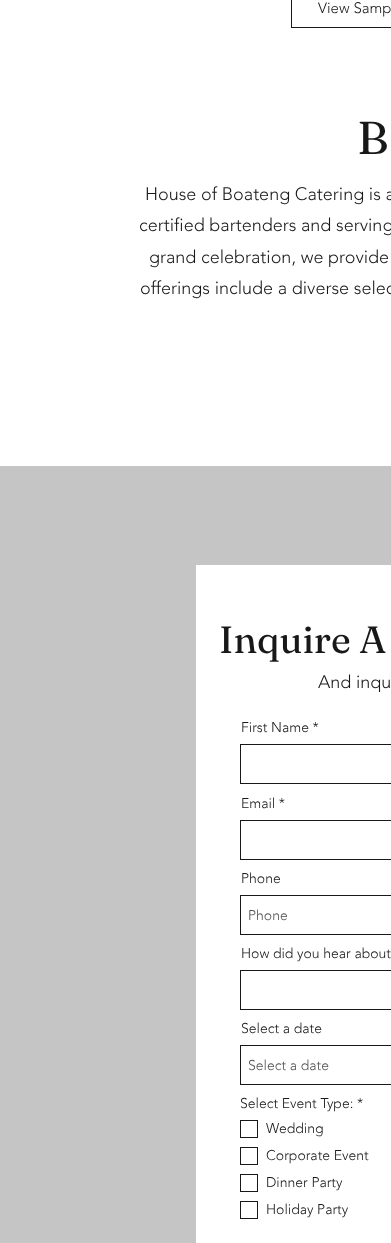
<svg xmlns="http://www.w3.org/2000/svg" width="391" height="1243">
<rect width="100%" height="100%" fill="#fff"/>
<rect x="291.5" y="-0.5" width="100" height="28" fill="none" stroke="#181818"/>
<text x="318" y="13" style="font-family:'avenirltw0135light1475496';font-size:15px;font-weight:300;fill:#181818">View Samp</text>
<text x="357" y="154" style="font-family:Fraunces;font-size:46px;fill:#181818">B</text>
<text x="145" y="200" style="font-family:'avenirltw0135light1475496';font-size:18px;font-weight:300;fill:#181818">House of Boateng Catering is a</text>
<text x="139" y="231" style="font-family:'avenirltw0135light1475496';font-size:18px;font-weight:300;fill:#181818">certified bartenders and serving</text>
<text x="149" y="263" style="font-family:'avenirltw0135light1475496';font-size:18px;font-weight:300;fill:#181818">grand celebration, we provide</text>
<text x="140" y="294" style="font-family:'avenirltw0135light1475496';font-size:18px;font-weight:300;fill:#181818">offerings include a diverse selec</text>
<rect y="466" width="391" height="777" fill="#c5c5c5"/>
<rect x="196" y="565" width="195" height="678" fill="#fff"/>
<text x="219" y="653" style="font-family:Fraunces;font-size:38px;fill:#181818">Inquire A</text>
<text x="318" y="688" style="font-family:'avenirltw0135light1475496';font-size:18px;font-weight:300;fill:#181818">And inqu</text>
<text x="241" y="732" style="font-family:'avenirltw0135light1475496';font-size:14px;font-weight:300;fill:#181818">First Name *</text>
<rect x="240.5" y="744.5" width="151" height="39" fill="none" stroke="#181818"/>
<text x="241" y="808" style="font-family:'avenirltw0135light1475496';font-size:14px;font-weight:300;fill:#181818">Email *</text>
<rect x="240.5" y="820.5" width="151" height="39" fill="none" stroke="#181818"/>
<text x="241" y="883" style="font-family:'avenirltw0135light1475496';font-size:14px;font-weight:300;fill:#181818">Phone</text>
<rect x="240.5" y="895.5" width="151" height="39" fill="none" stroke="#181818"/>
<text x="248" y="920" style="font-family:'avenirltw0135light1475496';font-size:14px;font-weight:300;fill:#525252">Phone</text>
<text x="241" y="958" style="font-family:'avenirltw0135light1475496';font-size:14px;font-weight:300;fill:#181818">How did you hear about</text>
<rect x="240.5" y="970.5" width="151" height="39" fill="none" stroke="#181818"/>
<text x="241" y="1033" style="font-family:'avenirltw0135light1475496';font-size:14px;font-weight:300;fill:#181818">Select a date</text>
<rect x="240.5" y="1045.5" width="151" height="39" fill="none" stroke="#181818"/>
<text x="248" y="1070" style="font-family:'avenirltw0135light1475496';font-size:14px;font-weight:300;fill:#525252">Select a date</text>
<text x="240" y="1108" style="font-family:'avenirltw0135light1475496';font-size:14px;font-weight:300;fill:#181818">Select Event Type: *</text>
<rect x="240.5" y="1120.5" width="17" height="17" fill="none" stroke="#181818"/>
<text x="266" y="1133" style="font-family:'avenirltw0135light1475496';font-size:14px;font-weight:300;fill:#181818">Wedding</text>
<rect x="240.5" y="1147.5" width="17" height="17" fill="none" stroke="#181818"/>
<text x="266" y="1160" style="font-family:'avenirltw0135light1475496';font-size:14px;font-weight:300;fill:#181818">Corporate Event</text>
<rect x="240.5" y="1174.5" width="17" height="17" fill="none" stroke="#181818"/>
<text x="266" y="1187" style="font-family:'avenirltw0135light1475496';font-size:14px;font-weight:300;fill:#181818">Dinner Party</text>
<rect x="240.5" y="1201.5" width="17" height="17" fill="none" stroke="#181818"/>
<text x="266" y="1214" style="font-family:'avenirltw0135light1475496';font-size:14px;font-weight:300;fill:#181818">Holiday Party</text>
</svg>
